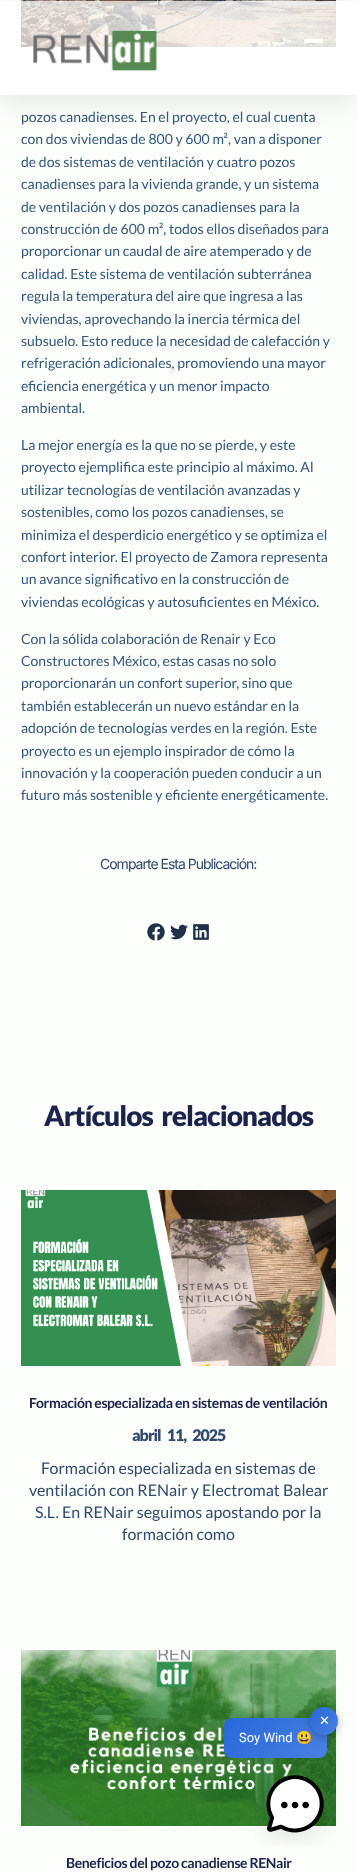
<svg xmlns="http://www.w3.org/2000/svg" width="357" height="1872">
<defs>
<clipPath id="clip1"><path d="M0 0h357v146h-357zm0 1h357v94h-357z" clip-rule="evenodd"/></clipPath>
<linearGradient id="g1" gradientUnits="userSpaceOnUse" x1="235" y1="1704" x2="316" y2="1772"><stop offset="0" stop-color="#2768db"/><stop offset="1" stop-color="#4a80e1"/></linearGradient>
<linearGradient id="g2" gradientUnits="userSpaceOnUse" x1="309" y1="1708" x2="339" y2="1733"><stop offset="0" stop-color="#2768db"/><stop offset="1" stop-color="#4a80e1"/></linearGradient>
</defs>
<rect width="100%" height="100%" fill="#fbfefb"/>
<image x="21" y="0" width="315" height="47" href="media/3.png"/>
<g clip-path="url(#clip1)">
<rect y="6" width="357" height="94" fill="#0000001a" filter="blur(15px)"/>
</g>
<rect y="1" width="357" height="94" fill="#ffffffb3"/>
<image x="33" y="30" width="124" height="41" href="media/1.png"/>
<image x="33" y="30" width="124" height="41" href="media/2.png"/>
<rect x="304" y="39" width="19" height="4" fill="#fbfefb"/>
<text x="21" y="122" style="font-family:Lato;font-size:14px;fill:#33567a">pozos canadienses. En el proyecto, el cual cuenta</text>
<text x="21" y="144" style="font-family:Lato;font-size:14px;fill:#33567a">con dos viviendas de 800 y 600 m², van a disponer</text>
<text x="21" y="167" style="font-family:Lato;font-size:14px;fill:#33567a">de dos sistemas de ventilación y cuatro pozos</text>
<text x="21" y="189" style="font-family:Lato;font-size:14px;fill:#33567a">canadienses para la vivienda grande, y un sistema</text>
<text x="21" y="212" style="font-family:Lato;font-size:14px;fill:#33567a">de ventilación y dos pozos canadienses para la</text>
<text x="21" y="234" style="font-family:Lato;font-size:14px;fill:#33567a">construcción de 600 m², todos ellos diseñados para</text>
<text x="21" y="256" style="font-family:Lato;font-size:14px;fill:#33567a">proporcionar un caudal de aire atemperado y de</text>
<text x="21" y="279" style="font-family:Lato;font-size:14px;fill:#33567a">calidad. Este sistema de ventilación subterránea</text>
<text x="21" y="301" style="font-family:Lato;font-size:14px;fill:#33567a">regula la temperatura del aire que ingresa a las</text>
<text x="21" y="324" style="font-family:Lato;font-size:14px;fill:#33567a">viviendas, aprovechando la inercia térmica del</text>
<text x="21" y="346" style="font-family:Lato;font-size:14px;fill:#33567a">subsuelo. Esto reduce la necesidad de calefacción y</text>
<text x="21" y="368" style="font-family:Lato;font-size:14px;fill:#33567a">refrigeración adicionales, promoviendo una mayor</text>
<text x="21" y="391" style="font-family:Lato;font-size:14px;fill:#33567a">eficiencia energética y un menor impacto</text>
<text x="21" y="413" style="font-family:Lato;font-size:14px;fill:#33567a">ambiental.</text>
<text x="21" y="450" style="font-family:Lato;font-size:14px;fill:#33567a">La mejor energía es la que no se pierde, y este</text>
<text x="21" y="472" style="font-family:Lato;font-size:14px;fill:#33567a">proyecto ejemplifica este principio al máximo. Al</text>
<text x="21" y="495" style="font-family:Lato;font-size:14px;fill:#33567a">utilizar tecnologías de ventilación avanzadas y</text>
<text x="21" y="517" style="font-family:Lato;font-size:14px;fill:#33567a">sostenibles, como los pozos canadienses, se</text>
<text x="21" y="540" style="font-family:Lato;font-size:14px;fill:#33567a">minimiza el desperdicio energético y se optimiza el</text>
<text x="21" y="562" style="font-family:Lato;font-size:14px;fill:#33567a">confort interior. El proyecto de Zamora representa</text>
<text x="21" y="584" style="font-family:Lato;font-size:14px;fill:#33567a">un avance significativo en la construcción de</text>
<text x="21" y="607" style="font-family:Lato;font-size:14px;fill:#33567a">viviendas ecológicas y autosuficientes en México.</text>
<text x="21" y="644" style="font-family:Lato;font-size:14px;fill:#33567a">Con la sólida colaboración de Renair y Eco</text>
<text x="21" y="666" style="font-family:Lato;font-size:14px;fill:#33567a">Constructores México, estas casas no solo</text>
<text x="21" y="688" style="font-family:Lato;font-size:14px;fill:#33567a">proporcionarán un confort superior, sino que</text>
<text x="21" y="711" style="font-family:Lato;font-size:14px;fill:#33567a">también establecerán un nuevo estándar en la</text>
<text x="21" y="733" style="font-family:Lato;font-size:14px;fill:#33567a">adopción de tecnologías verdes en la región. Este</text>
<text x="21" y="756" style="font-family:Lato;font-size:14px;fill:#33567a">proyecto es un ejemplo inspirador de cómo la</text>
<text x="21" y="778" style="font-family:Lato;font-size:14px;fill:#33567a">innovación y la cooperación pueden conducir a un</text>
<text x="21" y="800" style="font-family:Lato;font-size:14px;fill:#33567a">futuro más sostenible y eficiente energéticamente.</text>
<text x="100" y="869" style="font-family:Inter;font-size:14px;letter-spacing:-1px;fill:#324a6d">Comparte Esta Publicación:</text>
<image x="147" y="923" width="18" height="18" href="media/4.png"/>
<image x="170" y="924" width="18" height="16" href="media/5.png"/>
<image x="193" y="924" width="16" height="16" href="media/6.png"/>
<text x="44" y="1126" word-spacing="4" style="font-family:Lato;font-size:28px;font-weight:900;letter-spacing:-1px;fill:#1c244b">Artículos relacionados</text>
<image x="21" y="1190" width="315" height="176" href="media/7.png"/>
<text x="29" y="1408" style="font-family:Lato;font-size:14px;font-weight:bold;letter-spacing:-0.4px;fill:#1c244b">Formación especializada en sistemas de ventilación</text>
<text x="132" y="1441" word-spacing="4" style="font-family:Lato;font-size:16px;font-weight:900;letter-spacing:-1px;fill:#324a6d">abril 11, 2025</text>
<text x="41" y="1474" style="font-family:Lato;font-size:16px;fill:#324a6d">Formación especializada en sistemas de</text>
<text x="29" y="1496" style="font-family:Lato;font-size:16px;fill:#324a6d">ventilación con RENair y Electromat Balear</text>
<text x="35" y="1518" style="font-family:Lato;font-size:16px;fill:#324a6d">S.L. En RENair seguimos apostando por la</text>
<text x="122" y="1540" style="font-family:Lato;font-size:16px;fill:#324a6d">formación como</text>
<image x="21" y="1650" width="315" height="176" href="media/8.png"/>
<text x="66" y="1868" style="font-family:Lato;font-size:14px;font-weight:bold;letter-spacing:-0.4px;fill:#1c244b">Beneficios del pozo canadiense RENair</text>
<image x="255" y="1764" width="81" height="82" href="media/9.png"/>
<rect x="224" y="1718" width="103" height="40" rx="8" fill="#00000026" filter="blur(7.5px)"/>
<rect x="224" y="1718" width="103" height="40" rx="8" fill="url(#g1)"/>
<rect x="310" y="1709" width="28" height="28" rx="14" fill="#00000040" filter="blur(4px)"/>
<text x="296" y="1742" style="font-family:Noto Color Emoji;font-size:13px;fill:#fff">😃</text>
<circle cx="324" cy="1721" r="14" fill="url(#g2)"/>
<text x="319" y="1725" style="font-family:DejaVu Sans;font-size:13px;fill:#fff">✕</text>
<text x="239" y="1742" style="font-family:Roboto;font-size:13px;fill:#fff">Soy Wind</text>
</svg>
